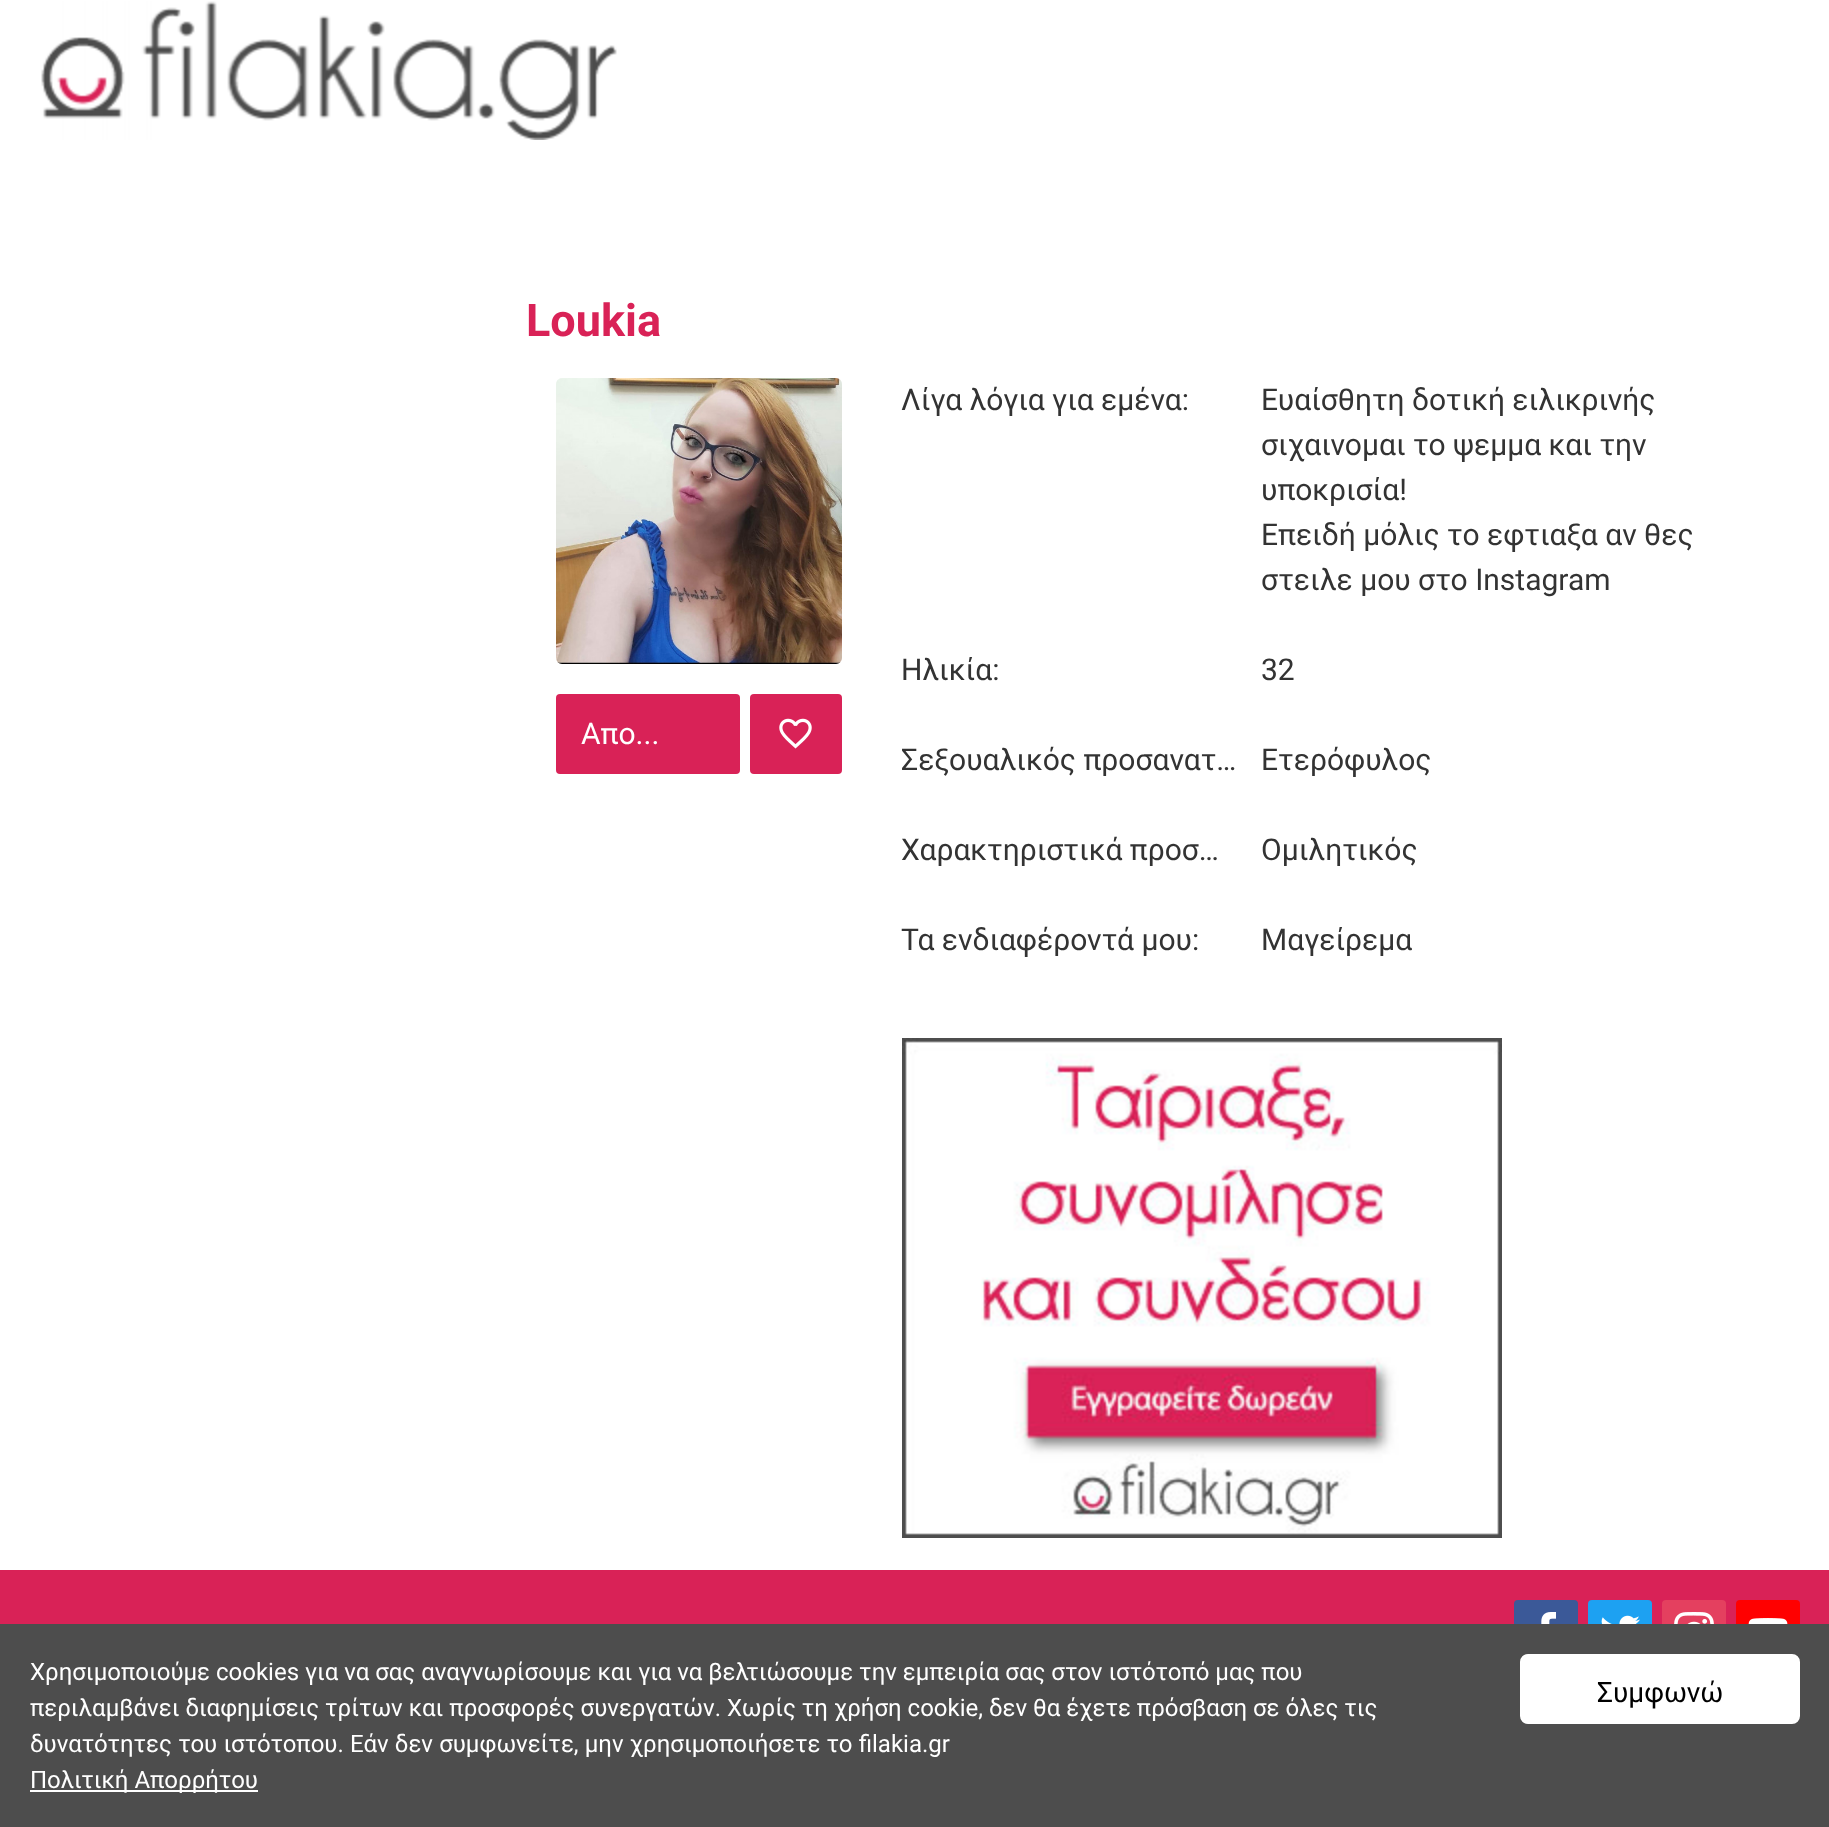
<svg xmlns="http://www.w3.org/2000/svg" width="1829" height="1827">
<rect width="100%" height="100%" fill="#fff"/>
<image x="41" y="1" width="576" height="139" href="media/1.png"/>
<text x="526" y="336" style="font-family:Roboto;font-size:45px;font-weight:bold;fill:#d92257">Loukia</text>
<image x="556" y="378" width="286" height="286" href="media/2.png"/>
<rect x="556" y="694" width="184" height="80" rx="4" fill="#d92257"/>
<text x="581" y="744" style="font-family:Roboto;font-size:30px;fill:#fff">Απο...</text>
<rect x="750" y="694" width="92" height="80" rx="4" fill="#d92257"/>
<image x="779" y="718" width="33" height="31" href="media/3.png"/>
<text x="901" y="410" style="font-family:Roboto;font-size:30px;fill:#333">Λίγα λόγια για εμένα:</text>
<text x="1261" y="410" style="font-family:Roboto;font-size:30px;fill:#333">Ευαίσθητη δοτική ειλικρινής</text>
<text x="1261" y="455" style="font-family:Roboto;font-size:30px;fill:#333">σιχαινομαι το ψεμμα και την</text>
<text x="1261" y="500" style="font-family:Roboto;font-size:30px;fill:#333">υποκρισία!</text>
<text x="1261" y="545" style="font-family:Roboto;font-size:30px;fill:#333">Επειδή μόλις το εφτιαξα αν θες</text>
<text x="1261" y="590" style="font-family:Roboto;font-size:30px;fill:#333">στειλε μου στο Instagram</text>
<text x="901" y="680" style="font-family:Roboto;font-size:30px;fill:#333">Ηλικία:</text>
<text x="1261" y="680" style="font-family:Roboto;font-size:30px;fill:#333">32</text>
<text x="901" y="770" style="font-family:Roboto;font-size:30px;fill:#333">Σεξουαλικός προσανατ…</text>
<text x="1261" y="770" style="font-family:Roboto;font-size:30px;fill:#333">Ετερόφυλος</text>
<text x="901" y="860" style="font-family:Roboto;font-size:30px;fill:#333">Χαρακτηριστικά προσ…</text>
<text x="1261" y="860" style="font-family:Roboto;font-size:30px;fill:#333">Ομιλητικός</text>
<text x="901" y="950" style="font-family:Roboto;font-size:30px;fill:#333">Τα ενδιαφέροντά μου:</text>
<text x="1261" y="950" style="font-family:Roboto;font-size:30px;fill:#333">Μαγείρεμα</text>
<image x="902" y="1038" width="600" height="500" href="media/4.png"/>
<rect y="1570" width="1829" height="54" fill="#d92257"/>
<rect x="1514" y="1600" width="64" height="64" rx="4" fill="#3b5998"/>
<image x="1541" y="1612" width="15" height="12" href="media/5.png"/>
<rect x="1588" y="1600" width="64" height="64" rx="4" fill="#1da1f2"/>
<image x="1601" y="1615" width="39" height="9" href="media/6.png"/>
<rect x="1662" y="1600" width="64" height="64" rx="4" fill="#e4405f"/>
<image x="1674" y="1612" width="40" height="12" href="media/7.png"/>
<rect x="1736" y="1600" width="64" height="64" rx="4" fill="#f00"/>
<image x="1748" y="1618" width="40" height="6" href="media/8.png"/>
<rect y="1624" width="1829" height="203" fill="#4d4d4d"/>
<text x="30" y="1680" style="font-family:Roboto;font-size:24px;fill:#fff">Χρησιμοποιούμε cookies για να σας αναγνωρίσουμε και για να βελτιώσουμε την εμπειρία σας στον ιστότοπό μας που</text>
<text x="30" y="1716" style="font-family:Roboto;font-size:24px;fill:#fff">περιλαμβάνει διαφημίσεις τρίτων και προσφορές συνεργατών. Χωρίς τη χρήση cookie, δεν θα έχετε πρόσβαση σε όλες τις</text>
<rect x="1521" y="1655" width="278" height="68" rx="7" fill="#fff" stroke="#fff" stroke-width="2"/>
<text x="1597" y="1702" style="font-family:Roboto;font-size:28px;fill:#000">Συμφωνώ</text>
<text x="30" y="1752" word-spacing="0.25" style="font-family:Roboto;font-size:24px;fill:#fff">δυνατότητες του ιστότοπου. Εάν δεν συμφωνείτε, μην χρησιμοποιήσετε το filakia.gr</text>
<rect x="30" y="1790" width="228" height="2" fill="#fff"/>
<text x="30" y="1788" style="font-family:Roboto;font-size:24px;fill:#fff">Πολιτική Απορρήτου</text>
</svg>
